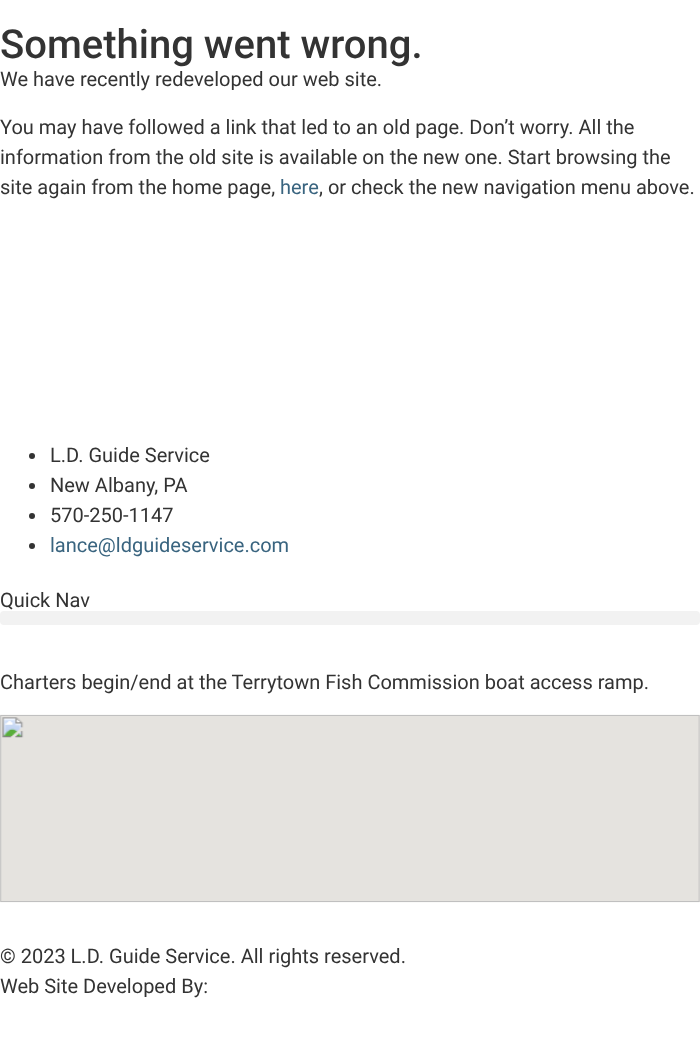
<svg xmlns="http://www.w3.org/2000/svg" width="700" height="1040">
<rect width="100%" height="100%" fill="#fff"/>
<text x="0" y="58" style="font-family:Roboto;font-size:40px;font-weight:500;fill:#333">Something went wrong.</text>
<text x="0" y="86" style="font-family:Roboto;font-size:20px;fill:#333">We have recently redeveloped our web site.</text>
<text x="0" y="134" style="font-family:Roboto;font-size:20px;fill:#333">You may have followed a link that led to an old page. Don’t worry. All the</text>
<text x="0" y="164" style="font-family:Roboto;font-size:20px;fill:#333">information from the old site is available on the new one. Start browsing the</text>
<text x="0" y="194" style="font-family:Roboto;font-size:20px;fill:#333">site again from the home page,</text>
<text x="280" y="194" style="font-family:Roboto;font-size:20px;fill:#39647f">here</text>
<text x="319" y="194" style="font-family:Roboto;font-size:20px;fill:#333">, or check the new navigation menu above.</text>
<circle cx="32" cy="456" r="3" fill="#333"/>
<text x="50" y="462" style="font-family:Roboto;font-size:20px;fill:#333">L.D. Guide Service</text>
<circle cx="32" cy="486" r="3" fill="#333"/>
<text x="50" y="492" style="font-family:Roboto;font-size:20px;fill:#333">New Albany, PA</text>
<circle cx="32" cy="516" r="3" fill="#333"/>
<text x="50" y="522" style="font-family:Roboto;font-size:20px;fill:#333">570-250-1147</text>
<circle cx="32" cy="546" r="3" fill="#333"/>
<text x="50" y="552" style="font-family:Roboto;font-size:20px;fill:#39647f">lance@ldguideservice.com</text>
<text x="0" y="607" style="font-family:Roboto;font-size:20px;fill:#333">Quick Nav</text>
<rect y="611" width="700" height="14" rx="4" fill="#f2f2f2"/>
<text x="0" y="689" style="font-family:Roboto;font-size:20px;fill:#333">Charters begin/end at the Terrytown Fish Commission boat access ramp.</text>
<image x="0" y="714" width="700" height="189" href="media/1.png"/>
<text x="0" y="963" style="font-family:Roboto;font-size:20px;fill:#333">© 2023 L.D. Guide Service. All rights reserved.</text>
<text x="0" y="993" style="font-family:Roboto;font-size:20px;fill:#333">Web Site Developed By:</text>
</svg>
